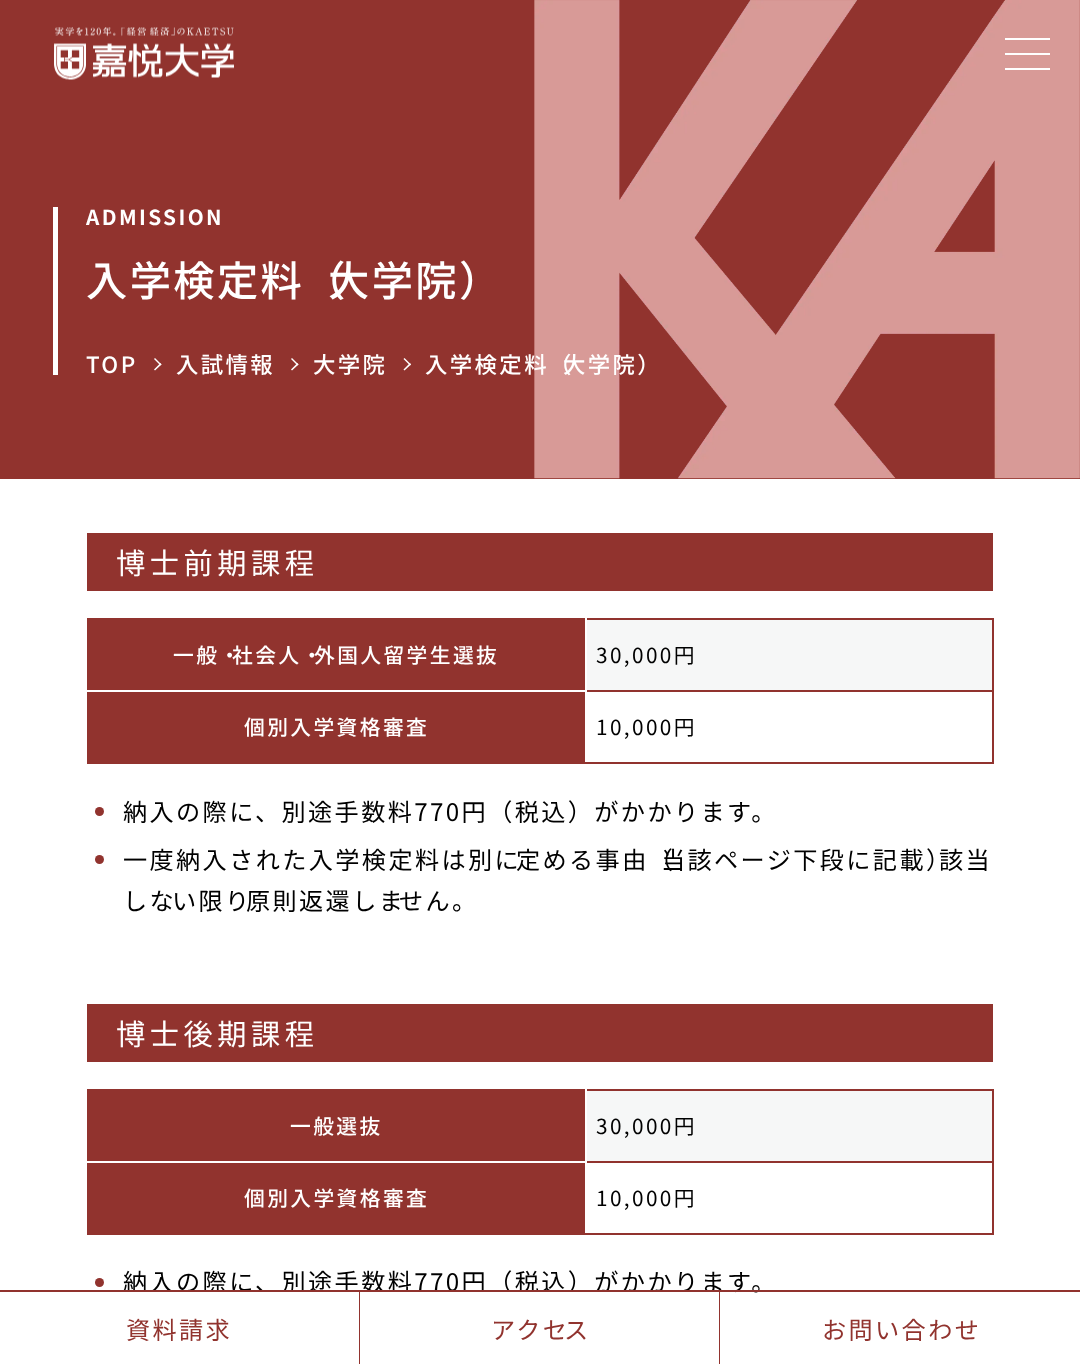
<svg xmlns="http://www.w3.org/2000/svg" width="1080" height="1364">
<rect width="100%" height="100%" fill="#fff"/>
<rect width="1080" height="479" fill="#91332e"/>
<image x="54" y="27" width="180" height="53" href="media/1.png"/>
<image x="534" y="0" width="546" height="479" href="media/2.png"/>
<rect x="1005" y="38" width="45" height="2" fill="#fff"/>
<rect x="1005" y="53" width="45" height="2" fill="#fff"/>
<rect x="1005" y="68" width="45" height="2" fill="#fff"/>
<rect x="53" y="207" width="5" height="168" fill="#fff"/>
<text x="86" y="225" style="font-family:Noto Sans JP;font-size:20.75px;font-weight:bold;letter-spacing:2.4px;fill:#fff">ADMISSION</text>
<text x="86" y="296" style="font-family:Noto Sans JP;font-size:41.25px;font-weight:500;letter-spacing:2.4px;fill:#fff">入学検定料（</text>
<text x="328" y="296" style="font-family:Noto Sans JP;font-size:41.25px;font-weight:500;letter-spacing:2.4px;fill:#fff">大学院）</text>
<text x="86" y="373" style="font-family:Noto Sans JP;font-size:22.4px;font-weight:500;letter-spacing:2.4px;fill:#fff">TOP</text>
<path d="M155 358l6.5 6.5l-1 1l-6.5-6.5z" fill="#fff"/>
<path d="M160.5 363l1 1.5l-6.5 6l-1-1z" fill="#fff"/>
<text x="176" y="373" style="font-family:Noto Sans JP;font-size:22.4px;font-weight:500;letter-spacing:2.4px;fill:#fff">入試情報</text>
<path d="M292 358l6.5 6.5l-1 1l-6.5-6.5z" fill="#fff"/>
<path d="M297.5 363l1 1.5l-6.5 6l-1-1z" fill="#fff"/>
<text x="313" y="373" style="font-family:Noto Sans JP;font-size:22.4px;font-weight:500;letter-spacing:2.4px;fill:#fff">大学院</text>
<path d="M404.5 358l6.5 6.5l-1 1l-6.5-6.5z" fill="#fff"/>
<path d="M410 363l1 1.5l-6.5 6l-1-1z" fill="#fff"/>
<text x="425" y="373" style="font-family:Noto Sans JP;font-size:22.4px;font-weight:500;letter-spacing:2.4px;fill:#fff">入学検定料（</text>
<text x="563" y="373" style="font-family:Noto Sans JP;font-size:22.4px;font-weight:500;letter-spacing:2.4px;fill:#fff">大学院）</text>
<rect x="87" y="533" width="906" height="58" fill="#91332e"/>
<text x="116" y="574" style="font-family:Noto Sans JP;font-size:29.25px;letter-spacing:4.5px;fill:#fff">博士前期課程</text>
<rect x="87" y="618" width="906" height="2" fill="#91332e"/>
<rect x="87" y="618" width="2" height="146" fill="#91332e"/>
<rect x="89" y="620" width="496" height="70" fill="#91332e"/>
<rect x="992" y="618" width="2" height="146" fill="#91332e"/>
<rect x="585" y="690" width="408" height="2" fill="#91332e"/>
<rect x="585" y="618" width="2" height="74" fill="#fff"/>
<rect x="87" y="690" width="2" height="2" fill="#fff"/>
<text x="173" y="663" style="font-family:Noto Sans JP;font-size:20.75px;font-weight:500;letter-spacing:2.4px;fill:#fff">一般・</text>
<text x="232" y="663" style="font-family:Noto Sans JP;font-size:20.75px;font-weight:500;letter-spacing:2.4px;fill:#fff">社会人・</text>
<text x="314" y="663" style="font-family:Noto Sans JP;font-size:20.75px;font-weight:500;letter-spacing:2.4px;fill:#fff">外国人留学生選抜</text>
<rect x="587" y="620" width="405" height="70" fill="#f6f7f7"/>
<text x="596" y="663" style="font-family:Noto Sans JP;font-size:20.75px;letter-spacing:2.4px;fill:#000">30,000円</text>
<rect x="89" y="692" width="496" height="70" fill="#91332e"/>
<rect x="585" y="762" width="408" height="2" fill="#91332e"/>
<rect x="585" y="762" width="2" height="2" fill="#fff"/>
<rect x="87" y="762" width="500" height="2" fill="#91332e"/>
<text x="244" y="735" style="font-family:Noto Sans JP;font-size:20.75px;font-weight:500;letter-spacing:2.4px;fill:#fff">個別入学資格審査</text>
<text x="596" y="735" style="font-family:Noto Sans JP;font-size:20.75px;letter-spacing:2.4px;fill:#000">10,000円</text>
<circle cx="99.5" cy="811.5" r="4.5" fill="#91332e"/>
<text x="123" y="821" style="font-family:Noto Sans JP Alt;font-size:24.15px;letter-spacing:2.4px;fill:#000">納入の際に、別途手数料770円（税込）がかかります。</text>
<circle cx="99.5" cy="859.5" r="4.5" fill="#91332e"/>
<text x="123" y="869" style="font-family:Noto Sans JP;font-size:24.15px;letter-spacing:2.4px;fill:#000">一度納入された入学検定料は別に</text>
<text x="516" y="869" style="font-family:Noto Sans JP;font-size:24.15px;letter-spacing:2.4px;fill:#000">定める事由（</text>
<text x="661" y="869" style="font-family:Noto Sans JP;font-size:24.15px;letter-spacing:2.4px;fill:#000">当該ページ下段に記載）</text>
<text x="939" y="869" style="font-family:Noto Sans JP;font-size:24.15px;letter-spacing:2.4px;fill:#000">該当</text>
<text x="123" y="910" style="font-family:Noto Sans JP;font-size:24.15px;letter-spacing:2.4px;fill:#000">しな</text>
<text x="172" y="910" style="font-family:Noto Sans JP;font-size:24.15px;letter-spacing:2.4px;fill:#000">い限り</text>
<text x="246" y="910" style="font-family:Noto Sans JP;font-size:24.15px;letter-spacing:2.4px;fill:#000">原則返還しま</text>
<text x="399" y="910" style="font-family:Noto Sans JP;font-size:24.15px;letter-spacing:2.4px;fill:#000">せん。</text>
<rect x="87" y="1004" width="906" height="58" fill="#91332e"/>
<text x="116" y="1045" style="font-family:Noto Sans JP;font-size:29.25px;letter-spacing:4.5px;fill:#fff">博士後期課程</text>
<rect x="87" y="1089" width="906" height="2" fill="#91332e"/>
<rect x="87" y="1089" width="2" height="146" fill="#91332e"/>
<rect x="89" y="1091" width="496" height="70" fill="#91332e"/>
<rect x="992" y="1089" width="2" height="146" fill="#91332e"/>
<rect x="585" y="1161" width="408" height="2" fill="#91332e"/>
<rect x="585" y="1089" width="2" height="74" fill="#fff"/>
<rect x="87" y="1161" width="2" height="2" fill="#fff"/>
<text x="290" y="1134" style="font-family:Noto Sans JP;font-size:20.75px;font-weight:500;letter-spacing:2.4px;fill:#fff">一般選抜</text>
<rect x="587" y="1091" width="405" height="70" fill="#f6f7f7"/>
<text x="596" y="1134" style="font-family:Noto Sans JP;font-size:20.75px;letter-spacing:2.4px;fill:#000">30,000円</text>
<rect x="89" y="1163" width="496" height="70" fill="#91332e"/>
<rect x="585" y="1233" width="408" height="2" fill="#91332e"/>
<rect x="585" y="1233" width="2" height="2" fill="#fff"/>
<rect x="87" y="1233" width="500" height="2" fill="#91332e"/>
<text x="244" y="1206" style="font-family:Noto Sans JP;font-size:20.75px;font-weight:500;letter-spacing:2.4px;fill:#fff">個別入学資格審査</text>
<text x="596" y="1206" style="font-family:Noto Sans JP;font-size:20.75px;letter-spacing:2.4px;fill:#000">10,000円</text>
<circle cx="99.5" cy="1282.5" r="4.5" fill="#91332e"/>
<text x="123" y="1291" style="font-family:Noto Sans JP Alt;font-size:24.15px;letter-spacing:2.4px;fill:#000">納入の際に、別途手数料770円（税込）がかかります。</text>
<rect y="1290" width="1080" height="2" fill="#91332e"/>
<rect x="359" y="1290" width="1" height="74" fill="#91332e"/>
<rect x="127" y="1292" width="232" height="1" fill="#fff"/>
<text x="126" y="1339" style="font-family:Noto Sans JP;font-size:24.15px;letter-spacing:2.4px;fill:#91332e">資料請求</text>
<rect x="719" y="1290" width="1" height="74" fill="#91332e"/>
<rect x="360" y="1292" width="350" height="2" fill="#fff"/>
<text x="491" y="1339" style="font-family:Noto Sans JP;font-size:24.15px;letter-spacing:2.4px;fill:#91332e">アクセ</text>
<text x="564" y="1339" style="font-family:Noto Sans JP;font-size:24.15px;letter-spacing:2.4px;fill:#91332e">ス</text>
<text x="822" y="1339" style="font-family:Noto Sans JP;font-size:24.15px;letter-spacing:2.4px;fill:#91332e">お問い合わせ</text>
</svg>
